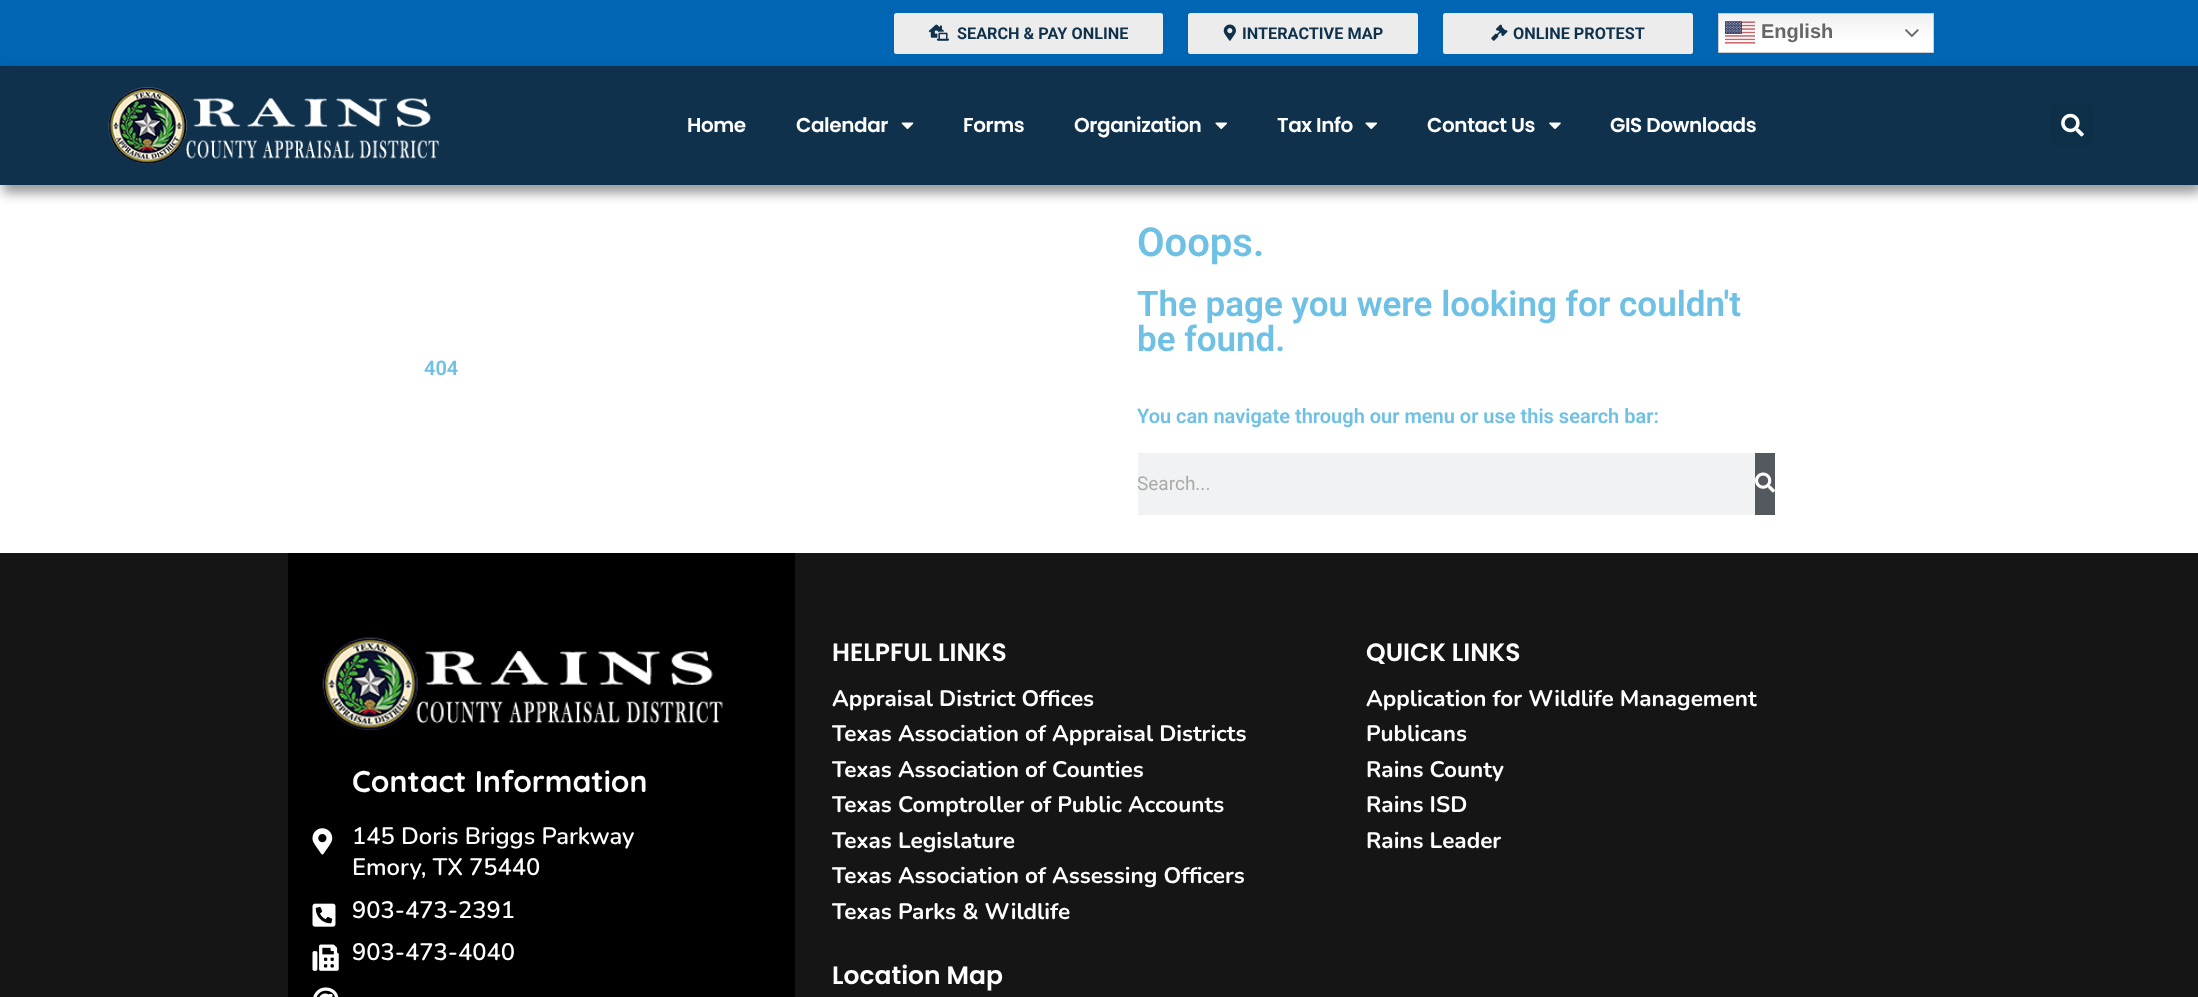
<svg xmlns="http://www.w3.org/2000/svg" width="2198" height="997">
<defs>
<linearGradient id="g1" gradientUnits="userSpaceOnUse" x1="1826" y1="12" x2="1826" y2="53"><stop offset="0" stop-color="#efefef"/><stop offset="0.7" stop-color="#fff"/></linearGradient>
</defs>
<rect width="100%" height="100%" fill="#fff"/>
<rect width="2198" height="66" fill="#0065b2"/>
<rect x="894" y="13" width="269" height="41" rx="2.5" fill="#ececec"/>
<image x="928" y="24" width="22" height="17" href="media/1.png"/>
<text x="957" y="39" style="font-family:Roboto;font-size:16.25px;font-weight:bold;fill:#0f314c">SEARCH &amp; PAY ONLINE</text>
<rect x="1188" y="13" width="230" height="41" rx="2.5" fill="#ececec"/>
<image x="1223" y="24" width="13" height="17" href="media/2.png"/>
<text x="1242" y="39" style="font-family:Roboto;font-size:16.25px;font-weight:bold;fill:#0f314c">INTERACTIVE MAP</text>
<rect x="1443" y="13" width="250" height="41" rx="2.5" fill="#ececec"/>
<image x="1491" y="24" width="17" height="17" href="media/3.png"/>
<text x="1513" y="39" style="font-family:Roboto;font-size:16.25px;font-weight:bold;fill:#0f314c">ONLINE PROTEST</text>
<rect x="1719" y="14" width="214" height="38" fill="url(#g1)"/>
<rect x="1718.5" y="13.5" width="215" height="39" fill="none" stroke="#ccc"/>
<image x="1725" y="21" width="30" height="23" href="media/4.png"/>
<text x="1761" y="38" style="font-family:Liberation Sans;font-size:20px;font-weight:bold;fill:#666">English</text>
<image x="1905" y="29" width="14" height="9" href="media/5.png"/>
<rect x="3" y="74" width="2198" height="119" fill="#00000066" filter="blur(6px)"/>
<rect y="66" width="2198" height="119" fill="#0f314c"/>
<image x="108" y="87" width="332" height="77" href="media/6.png"/>
<text x="687" y="132" style="font-family:Poppins;font-size:20px;font-weight:600;letter-spacing:-0.4px;fill:#fff">Home</text>
<text x="796" y="132" style="font-family:Poppins;font-size:20px;font-weight:600;letter-spacing:-0.4px;fill:#fff">Calendar</text>
<image x="901" y="122" width="13" height="8" href="media/7.png"/>
<text x="963" y="132" style="font-family:Poppins;font-size:20px;font-weight:600;letter-spacing:-0.4px;fill:#fff">Forms</text>
<text x="1074" y="132" style="font-family:Poppins;font-size:20px;font-weight:600;letter-spacing:-0.4px;fill:#fff">Organization</text>
<image x="1215" y="122" width="12" height="8" href="media/8.png"/>
<text x="1277" y="132" style="font-family:Poppins;font-size:20px;font-weight:600;letter-spacing:-0.4px;fill:#fff">Tax Info</text>
<image x="1365" y="122" width="12" height="8" href="media/8.png"/>
<text x="1427" y="132" style="font-family:Poppins;font-size:20px;font-weight:600;letter-spacing:-0.4px;fill:#fff">Contact Us</text>
<image x="1549" y="122" width="12" height="7" href="media/9.png"/>
<text x="1610" y="132" style="font-family:Poppins;font-size:20px;font-weight:600;letter-spacing:-0.4px;fill:#fff">GIS Downloads</text>
<rect x="2051" y="105" width="42" height="41" rx="4" fill="#0e2f48"/>
<image x="2061" y="113" width="23" height="24" href="media/10.png"/>
<text x="424" y="375" style="font-family:Roboto;font-size:20px;font-weight:600;fill:#6ec1e4">404</text>
<text x="1137" y="256" style="font-family:Roboto;font-size:40px;font-weight:600;fill:#6ec1e4">Ooops.</text>
<text x="1137" y="316" style="font-family:Roboto;font-size:35px;font-weight:600;fill:#6ec1e4">The page you were looking for couldn't</text>
<text x="1137" y="351" style="font-family:Roboto;font-size:35px;font-weight:600;fill:#6ec1e4">be found.</text>
<text x="1137" y="423" style="font-family:Roboto;font-size:20px;font-weight:600;fill:#6ec1e4">You can navigate through our menu or use this search bar:</text>
<rect x="1138" y="453" width="617" height="62" fill="#f1f2f3"/>
<text x="1137" y="490" style="font-family:Roboto;font-size:19px;fill:#aaa">Search...</text>
<rect x="1755" y="453" width="20" height="62" fill="#54595f"/>
<image x="1755" y="472" width="20" height="21" href="media/11.png"/>
<rect y="553" width="2198" height="444" fill="#151515"/>
<rect x="288" y="553" width="507" height="444" fill="#000"/>
<image x="322" y="637" width="401" height="93" href="media/12.png"/>
<text x="352" y="792" style="font-family:Quicksand;font-size:30px;font-weight:bold;fill:#fff">Contact Information</text>
<image x="312" y="828" width="21" height="27" href="media/13.png"/>
<text x="352" y="844" style="font-family:Nunito;font-size:23.75px;font-weight:600;fill:#fff">145 Doris Briggs Parkway</text>
<text x="352" y="875" style="font-family:Nunito;font-size:23.75px;font-weight:600;fill:#fff">Emory, TX 75440</text>
<image x="312" y="903" width="24" height="24" href="media/14.png"/>
<text x="352" y="918" style="font-family:Nunito;font-size:23.75px;font-weight:600;fill:#fff">903-473-2391</text>
<image x="312" y="944" width="27" height="27" href="media/15.png"/>
<text x="352" y="960" style="font-family:Nunito;font-size:23.75px;font-weight:600;fill:#fff">903-473-4040</text>
<image x="313" y="987" width="26" height="10" href="media/16.png"/>
<text x="832" y="661" style="font-family:Poppins;font-size:25px;font-weight:600;fill:#fff">HELPFUL LINKS</text>
<text x="832" y="706" style="font-family:Nunito;font-size:22.5px;font-weight:bold;fill:#fff">Appraisal District Offices</text>
<text x="832" y="741" style="font-family:Nunito;font-size:22.5px;font-weight:bold;fill:#fff">Texas Association of Appraisal Districts</text>
<text x="832" y="777" style="font-family:Nunito;font-size:22.5px;font-weight:bold;fill:#fff">Texas Association of Counties</text>
<text x="832" y="812" style="font-family:Nunito;font-size:22.5px;font-weight:bold;fill:#fff">Texas Comptroller of Public Accounts</text>
<text x="832" y="848" style="font-family:Nunito;font-size:22.5px;font-weight:bold;fill:#fff">Texas Legislature</text>
<text x="832" y="883" style="font-family:Nunito;font-size:22.5px;font-weight:bold;fill:#fff">Texas Association of Assessing Officers</text>
<text x="832" y="919" style="font-family:Nunito;font-size:22.5px;font-weight:bold;fill:#fff">Texas Parks &amp; Wildlife</text>
<text x="1366" y="661" style="font-family:Poppins;font-size:25px;font-weight:600;fill:#fff">QUICK LINKS</text>
<text x="1366" y="706" style="font-family:Nunito;font-size:22.5px;font-weight:bold;fill:#fff">Application for Wildlife Management</text>
<text x="1366" y="741" style="font-family:Nunito;font-size:22.5px;font-weight:bold;fill:#fff">Publicans</text>
<text x="1366" y="777" style="font-family:Nunito;font-size:22.5px;font-weight:bold;fill:#fff">Rains County</text>
<text x="1366" y="812" style="font-family:Nunito;font-size:22.5px;font-weight:bold;fill:#fff">Rains ISD</text>
<text x="1366" y="848" style="font-family:Nunito;font-size:22.5px;font-weight:bold;fill:#fff">Rains Leader</text>
<text x="832" y="984" style="font-family:Poppins;font-size:25px;font-weight:600;fill:#fff">Location Map</text>
</svg>
